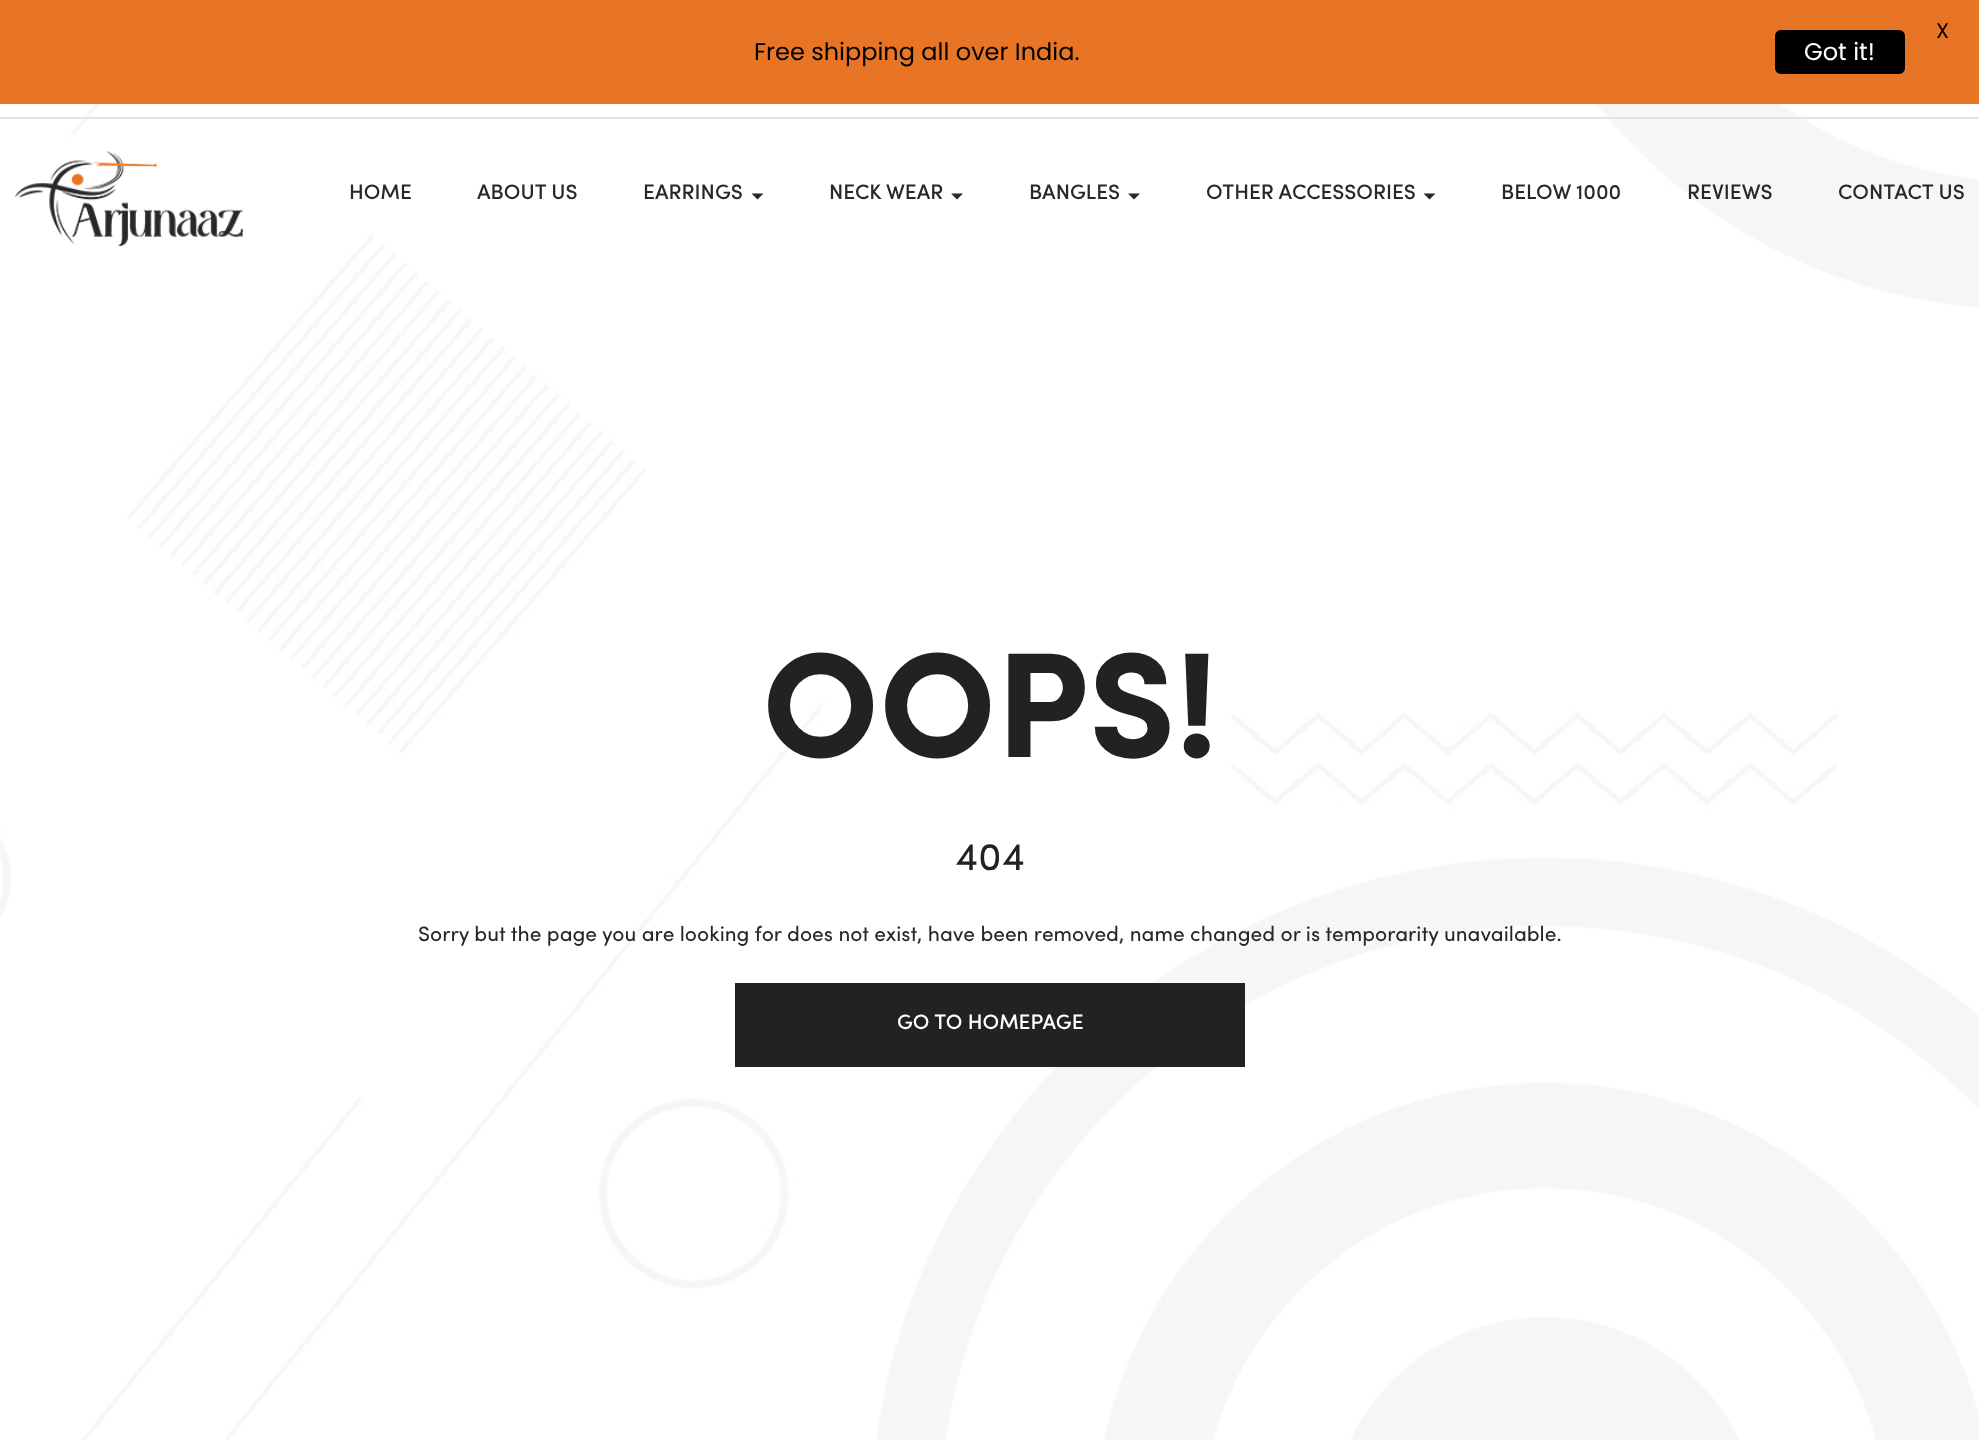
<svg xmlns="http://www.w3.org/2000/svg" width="1979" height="1440">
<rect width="100%" height="100%" fill="#fff"/>
<rect width="1979" height="104" fill="#e87525"/>
<text x="1936" y="38" style="font-family:Poppins;font-size:21px;fill:#000">X</text>
<text x="754" y="60" style="font-family:Poppins;font-size:24px;fill:#000">Free shipping all over India.</text>
<rect x="1775" y="30" width="130" height="44" rx="6" fill="#000"/>
<text x="1804" y="60" style="font-family:Poppins;font-size:24px;fill:#fff">Got it!</text>
<image x="0" y="104" width="1979" height="1336" href="media/2.png"/>
<rect y="117" width="1979" height="2" fill="#e4e4e4"/>
<image x="15" y="151" width="228" height="95" href="media/1.png"/>
<text x="349" y="199" style="font-family:Sofia;font-size:21px;font-weight:500;fill:#272827">HOME</text>
<text x="477" y="199" style="font-family:Sofia;font-size:21px;font-weight:500;fill:#272827">ABOUT US</text>
<text x="643" y="199" style="font-family:Sofia;font-size:21px;font-weight:500;fill:#272827">EARRINGS</text>
<path d="M751.5 193.5h12l-6 6z" fill="#272827"/>
<text x="829" y="199" style="font-family:Sofia;font-size:21px;font-weight:500;fill:#272827">NECK WEAR</text>
<path d="M951 193.5h12l-6 6z" fill="#272827"/>
<text x="1029" y="199" style="font-family:Sofia;font-size:21px;font-weight:500;fill:#272827">BANGLES</text>
<path d="M1128 193.5h12l-6 6z" fill="#272827"/>
<text x="1206" y="199" style="font-family:Sofia;font-size:21px;font-weight:500;fill:#272827">OTHER ACCESSORIES</text>
<path d="M1423.5 193.5h12l-6 6z" fill="#272827"/>
<text x="1501" y="199" style="font-family:Sofia;font-size:21px;font-weight:500;fill:#272827">BELOW 1000</text>
<text x="1687" y="199" style="font-family:Sofia;font-size:21px;font-weight:500;fill:#272827">REVIEWS</text>
<text x="1838" y="199" style="font-family:Sofia;font-size:21px;font-weight:500;fill:#272827">CONTACT US</text>
<text x="762" y="757" style="font-family:Sofia;font-size:150px;font-weight:bold;fill:#222">OOPS!</text>
<text x="955" y="870" style="font-family:Sofia;font-size:39px;fill:#222">404</text>
<text x="418" y="941" style="font-family:Sofia;font-size:21px;fill:#272827">Sorry but the page you are looking for does not exist, have been removed, name changed or is temporarity unavailable.</text>
<rect x="735" y="983" width="510" height="84" fill="#222"/>
<text x="897" y="1029" style="font-family:Sofia;font-size:21px;font-weight:500;fill:#fff">GO TO HOMEPAGE</text>
</svg>
